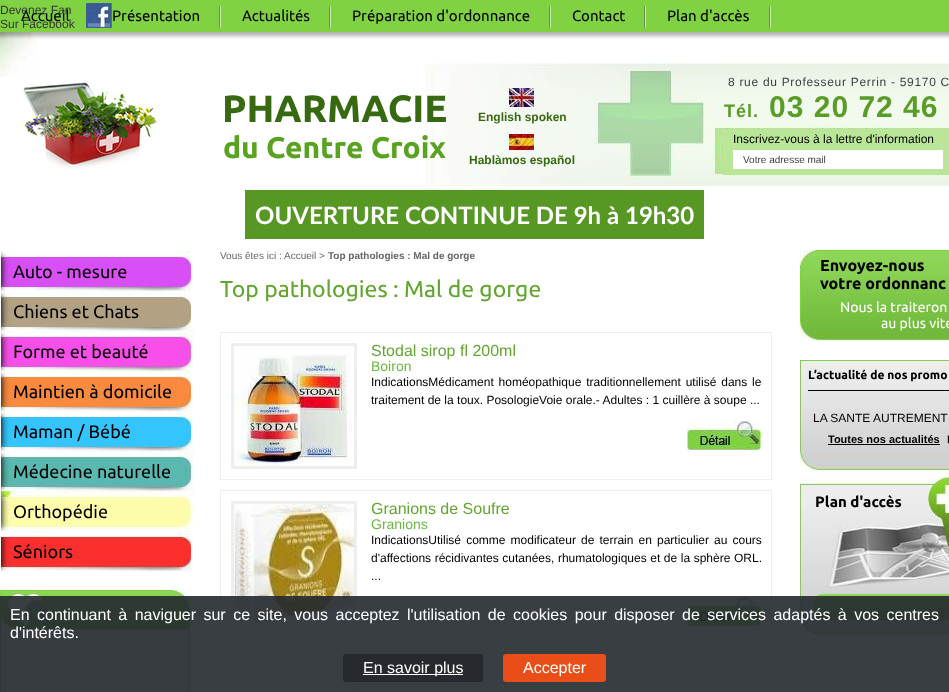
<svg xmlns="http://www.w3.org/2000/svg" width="949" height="692">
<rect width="100%" height="100%" fill="#fff"/>
<image x="0" y="32" width="38" height="45" href="media/1.png"/>
<image x="0" y="0" width="949" height="39" href="media/2.png"/>
<text x="21" y="21" style="font-family:Ubuntu;font-size:15px;fill:#000">Accueil</text>
<text x="0" y="14" style="font-family:Liberation Sans;font-size:12px;fill:#333">Devenez Fan</text>
<text x="0" y="28" style="font-family:Liberation Sans;font-size:12px;fill:#333">Sur Facebook</text>
<image x="89" y="0" width="2" height="32" href="media/4.png"/>
<image x="86" y="3" width="26" height="25" href="media/3.png"/>
<image x="219" y="0" width="2" height="32" href="media/4.png"/>
<text x="112" y="21" style="font-family:Ubuntu;font-size:15px;fill:#000">Présentation</text>
<image x="329" y="0" width="2" height="32" href="media/4.png"/>
<text x="242" y="21" style="font-family:Ubuntu;font-size:15px;fill:#000">Actualités</text>
<image x="549" y="0" width="2" height="32" href="media/4.png"/>
<text x="352" y="21" style="font-family:Ubuntu;font-size:15px;fill:#000">Préparation d'ordonnance</text>
<image x="644" y="0" width="2" height="32" href="media/4.png"/>
<text x="572" y="21" style="font-family:Ubuntu;font-size:15px;fill:#000">Contact</text>
<image x="769" y="0" width="2" height="32" href="media/4.png"/>
<text x="667" y="21" style="font-family:Ubuntu;font-size:15px;fill:#000">Plan d'accès</text>
<image x="23" y="82" width="134" height="87" href="media/5.png"/>
<image x="425" y="63" width="524" height="123" href="media/8.png"/>
<text x="222" y="122" style="font-family:Ubuntu;font-size:38px;font-weight:bold;fill:#376911">PHARMACIE</text>
<text x="223" y="158" style="font-family:Ubuntu;font-size:30px;font-weight:bold;fill:#59a321">du Centre Croix</text>
<image x="509" y="88" width="25" height="19" href="media/6.png"/>
<text x="478" y="121" style="font-family:Liberation Sans;font-size:12px;font-weight:bold;fill:#376911">English spoken</text>
<image x="509" y="134" width="25" height="16" href="media/7.png"/>
<text x="469" y="164" style="font-family:Liberation Sans;font-size:12px;font-weight:bold;fill:#376911">Hablàmos español</text>
<text x="728" y="86" style="font-family:Liberation Sans;font-size:12px;letter-spacing:0.7px;fill:#3e3e3e">8 rue du Professeur Perrin - 59170 C</text>
<text x="724" y="117" style="font-family:Liberation Sans;font-size:18px;font-weight:bold;letter-spacing:1px;fill:#599c27">Tél.</text>
<text x="769" y="117" style="font-family:Liberation Sans;font-size:30px;font-weight:bold;letter-spacing:1px;fill:#599c27">03 20 72 46</text>
<rect x="723" y="129" width="226" height="46" fill="#bae698"/>
<text x="733" y="143" style="font-family:Liberation Sans;font-size:12px;fill:#000">Inscrivez-vous à la lettre d'information</text>
<rect x="733" y="150" width="210" height="19" fill="#fff"/>
<text x="743" y="163" style="font-family:Liberation Sans;font-size:10px;fill:#3e3e3e">Votre adresse mail</text>
<rect x="245" y="190" width="459" height="49" fill="#579723"/>
<text x="255" y="224" style="font-family:Lato;font-size:24px;font-weight:bold;fill:#fff">OUVERTURE CONTINUE DE 9h à 19h30</text>
<image x="1" y="251" width="190" height="40" href="media/9.png"/>
<text x="13" y="278" style="font-family:Ubuntu;font-size:18px;fill:#000">Auto - mesure</text>
<image x="1" y="291" width="190" height="40" href="media/10.png"/>
<text x="13" y="318" style="font-family:Ubuntu;font-size:18px;fill:#000">Chiens et Chats</text>
<image x="1" y="331" width="193" height="40" href="media/11.png"/>
<text x="13" y="358" style="font-family:Ubuntu;font-size:18px;fill:#000">Forme et beauté</text>
<image x="1" y="371" width="190" height="40" href="media/12.png"/>
<text x="13" y="398" style="font-family:Ubuntu;font-size:18px;fill:#000">Maintien à domicile</text>
<image x="1" y="411" width="190" height="40" href="media/13.png"/>
<text x="13" y="438" style="font-family:Ubuntu;font-size:18px;fill:#000">Maman / Bébé</text>
<image x="1" y="451" width="193" height="40" href="media/14.png"/>
<text x="13" y="478" style="font-family:Ubuntu;font-size:18px;fill:#000">Médecine naturelle</text>
<image x="1" y="491" width="193" height="40" href="media/15.png"/>
<text x="13" y="518" style="font-family:Ubuntu;font-size:18px;fill:#000">Orthopédie</text>
<image x="1" y="531" width="190" height="40" href="media/16.png"/>
<text x="13" y="558" style="font-family:Ubuntu;font-size:18px;fill:#000">Séniors</text>
<image x="0" y="590" width="190" height="40" href="media/17.png"/>
<image x="0" y="630" width="190" height="62" href="media/18.png"/>
<text x="220" y="259" style="font-family:Liberation Sans;font-size:10px;fill:#666">Vous êtes ici :</text>
<text x="284" y="259" style="font-family:Liberation Sans;font-size:10px;fill:#666">Accueil &gt;</text>
<text x="328" y="259" style="font-family:Liberation Sans;font-size:10px;font-weight:bold;fill:#666">Top pathologies : Mal de gorge</text>
<text x="220" y="297" style="font-family:Ubuntu;font-size:23px;fill:#62a630">Top pathologies : Mal de gorge</text>
<rect x="220.5" y="332.5" width="551" height="147" fill="none" stroke="#eee"/>
<rect x="232.5" y="344.5" width="123" height="123" fill="none" stroke="#eee" stroke-width="3"/>
<image x="234" y="354" width="119" height="112" href="media/19.png"/>
<text x="371" y="356" style="font-family:Liberation Sans;font-size:16px;fill:#62a630">Stodal sirop fl 200ml</text>
<text x="371" y="371" style="font-family:Liberation Sans;font-size:14px;fill:#6ab93f">Boiron</text>
<text x="371" y="386" word-spacing="1.5" style="font-family:Liberation Sans;font-size:12px;fill:#000">IndicationsMédicament homéopathique traditionnellement utilisé dans le</text>
<text x="371" y="404" style="font-family:Liberation Sans;font-size:12px;fill:#000">traitement de la toux. PosologieVoie orale.- Adultes : 1 cuillère à soupe ...</text>
<image x="687" y="421" width="74" height="29" href="media/20.png"/>
<rect x="220.5" y="490.5" width="551" height="147" fill="none" stroke="#eee"/>
<rect x="232.5" y="502.5" width="123" height="123" fill="none" stroke="#eee" stroke-width="3"/>
<image x="234" y="504" width="120" height="120" href="media/21.png"/>
<text x="371" y="514" style="font-family:Liberation Sans;font-size:16px;fill:#62a630">Granions de Soufre</text>
<text x="371" y="529" style="font-family:Liberation Sans;font-size:14px;fill:#6ab93f">Granions</text>
<text x="371" y="544" word-spacing="1.75" style="font-family:Liberation Sans;font-size:12px;fill:#000">IndicationsUtilisé comme modificateur de terrain en particulier au cours</text>
<text x="371" y="562" word-spacing="0.25" style="font-family:Liberation Sans;font-size:12px;fill:#000">d'affections récidivantes cutanées, rhumatologiques et de la sphère ORL.</text>
<text x="371" y="580" style="font-family:Liberation Sans;font-size:12px;fill:#000">...</text>
<image x="687" y="597" width="74" height="29" href="media/20.png"/>
<rect x="220.5" y="648.5" width="551" height="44" fill="none" stroke="#eee"/>
<rect x="232.5" y="660.5" width="123" height="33" fill="none" stroke="#eee" stroke-width="3"/>
<image x="800" y="250" width="149" height="91" href="media/22.png"/>
<text x="820" y="271" style="font-family:Ubuntu;font-size:16px;font-weight:bold;fill:#000">Envoyez-nous</text>
<text x="820" y="289" style="font-family:Ubuntu;font-size:16px;font-weight:bold;fill:#000">votre ordonnanc</text>
<text x="840" y="312" style="font-family:Ubuntu;font-size:14px;fill:#fff">Nous la traiteron</text>
<text x="881" y="328" style="font-family:Ubuntu;font-size:14px;fill:#fff">au plus vite</text>
<image x="800" y="360" width="149" height="113" href="media/23.png"/>
<rect x="808" y="390" width="141" height="1" fill="#000"/>
<text x="808" y="379" style="font-family:Ubuntu;font-size:12px;font-weight:bold;fill:#000">L’actualité de nos promo</text>
<text x="813" y="422" style="font-family:Liberation Sans;font-size:12px;fill:#000">LA SANTE AUTREMENT</text>
<image x="947" y="435" width="2" height="9" href="media/24.png"/>
<text x="828" y="443" style="font-family:Liberation Sans;font-size:11px;font-weight:bold;fill:#000">Toutes nos actualités</text>
<rect x="828" y="444" width="112" height="1" fill="#000"/>
<image x="800" y="477" width="149" height="157" href="media/25.png"/>
<text x="815" y="507" style="font-family:Ubuntu;font-size:15px;font-weight:bold;fill:#000">Plan d'accès</text>
<image x="814" y="594" width="135" height="27" href="media/26.png"/>
<rect y="596" width="949" height="96" fill="#23292fe6"/>
<text x="10" y="620" word-spacing="3" style="font-family:Liberation Sans;font-size:16px;fill:#fff">En continuant à naviguer sur ce site, vous acceptez l'utilisation de cookies pour disposer de services adaptés à vos centres</text>
<text x="10" y="638" style="font-family:Liberation Sans;font-size:16px;fill:#fff">d'intérêts.</text>
<rect x="343" y="654" width="140" height="28" rx="3" fill="#26292d"/>
<rect x="363" y="674" width="100" height="1" fill="#fff"/>
<text x="363" y="673" style="font-family:Liberation Sans;font-size:16px;fill:#fff">En savoir plus</text>
<rect x="503" y="654" width="103" height="28" rx="3" fill="#e94e18"/>
<text x="523" y="673" style="font-family:Liberation Sans;font-size:16px;fill:#fff">Accepter</text>
</svg>
